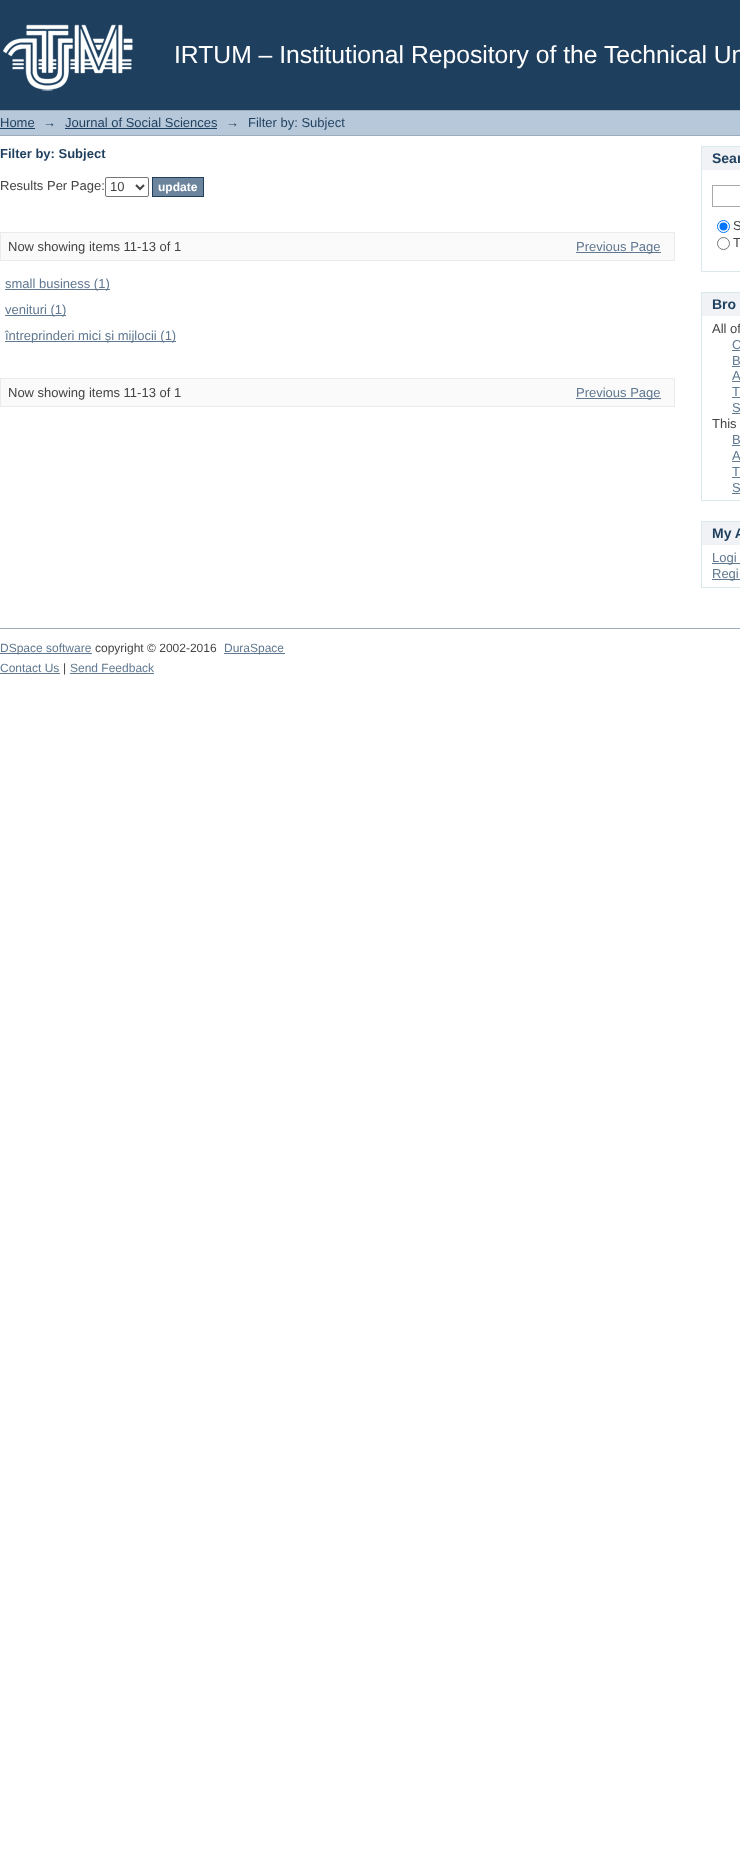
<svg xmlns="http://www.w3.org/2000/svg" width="740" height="1861">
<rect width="100%" height="100%" fill="#fff"/>
<rect width="740" height="110" fill="#1f3f5e"/>
<image x="3" y="24" width="130" height="67" href="media/1.png"/>
<text x="174" y="63" style="font-family:Liberation Sans;font-size:24.7px;fill:#fff">IRTUM – Institutional Repository of the Technical Un</text>
<rect y="111" width="740" height="24" fill="#b6c8d9"/>
<rect y="110" width="740" height="1" fill="#9cacba"/>
<rect y="135" width="740" height="1" fill="#9cacba"/>
<text x="0" y="127" style="font-family:Liberation Sans;font-size:13px;fill:#1f3f5e">Home</text>
<rect y="128" width="35" height="1" fill="#1f3f5e"/>
<text x="43" y="127" style="font-family:Liberation Sans;font-size:13px;fill:#1f3f5e">→</text>
<text x="65" y="127" style="font-family:Liberation Sans;font-size:13px;fill:#1f3f5e">Journal of Social Sciences</text>
<rect x="65" y="128" width="152" height="1" fill="#1f3f5e"/>
<text x="226" y="127" style="font-family:Liberation Sans;font-size:13px;fill:#1f3f5e">→</text>
<text x="248" y="127" style="font-family:Liberation Sans;font-size:13px;fill:#1f3f5e">Filter by: Subject</text>
<text x="0" y="158" style="font-family:Liberation Sans;font-size:13px;font-weight:bold;fill:#1f3f5e">Filter by: Subject</text>
<text x="0" y="190" style="font-family:Liberation Sans;font-size:13px;fill:#444">Results Per Page:</text>
<rect x="105.5" y="177.5" width="43" height="19" rx="1.5" fill="none" stroke="#767676"/>
<path d="M136 185l4 4l4-4" fill="none" stroke="#444" stroke-width="2"/>
<text x="110" y="191" style="font-family:Liberation Sans;font-size:13px;fill:#444">10</text>
<rect x="152.5" y="177.5" width="51" height="19" fill="#6d859c" stroke="#1f3f5e"/>
<text x="158" y="191" style="font-family:Liberation Sans;font-size:12px;font-weight:bold;fill:#fff">update</text>
<rect x="0.5" y="232.5" width="674" height="28" fill="#fafafa" stroke="#ebebeb"/>
<text x="8" y="251" style="font-family:Liberation Sans;font-size:13px;fill:#444">Now showing items 11-13 of 1</text>
<rect x="576" y="252" width="85" height="1" fill="#607890"/>
<text x="576" y="251" style="font-family:Liberation Sans;font-size:13px;fill:#607890">Previous Page</text>
<rect x="5" y="289" width="105" height="1" fill="#607890"/>
<text x="5" y="288" style="font-family:Liberation Sans;font-size:13px;fill:#607890">small business (1)</text>
<rect x="5" y="315" width="61" height="1" fill="#607890"/>
<text x="5" y="314" style="font-family:Liberation Sans;font-size:13px;fill:#607890">venituri (1)</text>
<rect x="5" y="341" width="171" height="1" fill="#607890"/>
<text x="5" y="340" style="font-family:Liberation Sans;font-size:13px;fill:#607890">întreprinderi mici şi mijlocii (1)</text>
<rect x="0.5" y="378.5" width="674" height="28" fill="#fafafa" stroke="#ebebeb"/>
<text x="8" y="397" style="font-family:Liberation Sans;font-size:13px;fill:#444">Now showing items 11-13 of 1</text>
<rect x="576" y="398" width="85" height="1" fill="#607890"/>
<text x="576" y="397" style="font-family:Liberation Sans;font-size:13px;fill:#607890">Previous Page</text>
<rect x="702" y="147" width="38" height="23" fill="#f0f2f5"/>
<rect x="701" y="146" width="39" height="1" fill="#d8e8eb"/>
<rect x="701" y="146" width="1" height="24" fill="#d8e8eb"/>
<text x="712" y="163" style="font-family:Liberation Sans;font-size:14px;font-weight:bold;fill:#1f3f5e">Sear</text>
<rect x="701" y="271" width="39" height="1" fill="#d8e8eb"/>
<rect x="701" y="170" width="1" height="102" fill="#d8e8eb"/>
<rect x="712.5" y="185.5" width="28" height="21" fill="none" stroke="#aaa"/>
<circle cx="723.5" cy="226.5" r="6" fill="none" stroke="#0075ff"/>
<circle cx="723.5" cy="226.5" r="4" fill="#0075ff"/>
<text x="733" y="230" style="font-family:Liberation Sans;font-size:13px;fill:#444">S</text>
<circle cx="723.5" cy="243.5" r="6" fill="none" stroke="#767676"/>
<text x="733" y="247" style="font-family:Liberation Sans;font-size:13px;fill:#444">T</text>
<rect x="702" y="293" width="38" height="23" fill="#f0f2f5"/>
<rect x="701" y="292" width="39" height="1" fill="#d8e8eb"/>
<rect x="701" y="292" width="1" height="24" fill="#d8e8eb"/>
<text x="712" y="309" style="font-family:Liberation Sans;font-size:14px;font-weight:bold;fill:#1f3f5e">Bro</text>
<rect x="701" y="500" width="39" height="1" fill="#d8e8eb"/>
<rect x="701" y="316" width="1" height="185" fill="#d8e8eb"/>
<text x="712" y="333" style="font-family:Liberation Sans;font-size:13px;fill:#444">All of</text>
<text x="732" y="349" style="font-family:Liberation Sans;font-size:13px;fill:#607890">C</text>
<rect x="732" y="350" width="8" height="1" fill="#607890"/>
<text x="732" y="365" style="font-family:Liberation Sans;font-size:13px;fill:#607890">B</text>
<rect x="732" y="366" width="8" height="1" fill="#607890"/>
<text x="732" y="380" style="font-family:Liberation Sans;font-size:13px;fill:#607890">A</text>
<rect x="732" y="381" width="8" height="1" fill="#607890"/>
<text x="732" y="396" style="font-family:Liberation Sans;font-size:13px;fill:#607890">T</text>
<rect x="732" y="397" width="8" height="1" fill="#607890"/>
<text x="732" y="412" style="font-family:Liberation Sans;font-size:13px;fill:#607890">S</text>
<rect x="732" y="413" width="8" height="1" fill="#607890"/>
<text x="712" y="428" style="font-family:Liberation Sans;font-size:13px;fill:#444">This</text>
<text x="732" y="444" style="font-family:Liberation Sans;font-size:13px;fill:#607890">B</text>
<rect x="732" y="445" width="8" height="1" fill="#607890"/>
<text x="732" y="460" style="font-family:Liberation Sans;font-size:13px;fill:#607890">A</text>
<rect x="732" y="461" width="8" height="1" fill="#607890"/>
<text x="732" y="476" style="font-family:Liberation Sans;font-size:13px;fill:#607890">T</text>
<rect x="732" y="477" width="8" height="1" fill="#607890"/>
<text x="732" y="492" style="font-family:Liberation Sans;font-size:13px;fill:#607890">S</text>
<rect x="732" y="493" width="8" height="1" fill="#607890"/>
<rect x="702" y="522" width="38" height="23" fill="#f0f2f5"/>
<rect x="701" y="521" width="39" height="1" fill="#d8e8eb"/>
<rect x="701" y="521" width="1" height="24" fill="#d8e8eb"/>
<text x="712" y="538" style="font-family:Liberation Sans;font-size:14px;font-weight:bold;fill:#1f3f5e">My A</text>
<rect x="701" y="587" width="39" height="1" fill="#d8e8eb"/>
<rect x="701" y="545" width="1" height="43" fill="#d8e8eb"/>
<rect x="712" y="563" width="28" height="1" fill="#607890"/>
<text x="712" y="562" style="font-family:Liberation Sans;font-size:13px;fill:#607890">Logi</text>
<rect x="712" y="579" width="28" height="1" fill="#607890"/>
<text x="712" y="578" style="font-family:Liberation Sans;font-size:13px;fill:#607890">Regi</text>
<rect y="628" width="740" height="1" fill="#9cacba"/>
<rect y="653" width="92" height="1" fill="#607890"/>
<text x="0" y="652" style="font-family:Liberation Sans;font-size:12px;fill:#607890">DSpace software</text>
<text x="95" y="652" style="font-family:Liberation Sans;font-size:12px;fill:#444">copyright © 2002-2016</text>
<rect x="224" y="653" width="61" height="1" fill="#607890"/>
<text x="224" y="652" style="font-family:Liberation Sans;font-size:12px;fill:#607890">DuraSpace</text>
<text x="0" y="672" style="font-family:Liberation Sans;font-size:12px;fill:#607890">Contact Us</text>
<rect y="673" width="60" height="1" fill="#607890"/>
<text x="63" y="672" style="font-family:Liberation Sans;font-size:12px;fill:#444">|</text>
<text x="70" y="672" style="font-family:Liberation Sans;font-size:12px;fill:#607890">Send Feedback</text>
<rect x="70" y="673" width="84" height="1" fill="#607890"/>
</svg>
